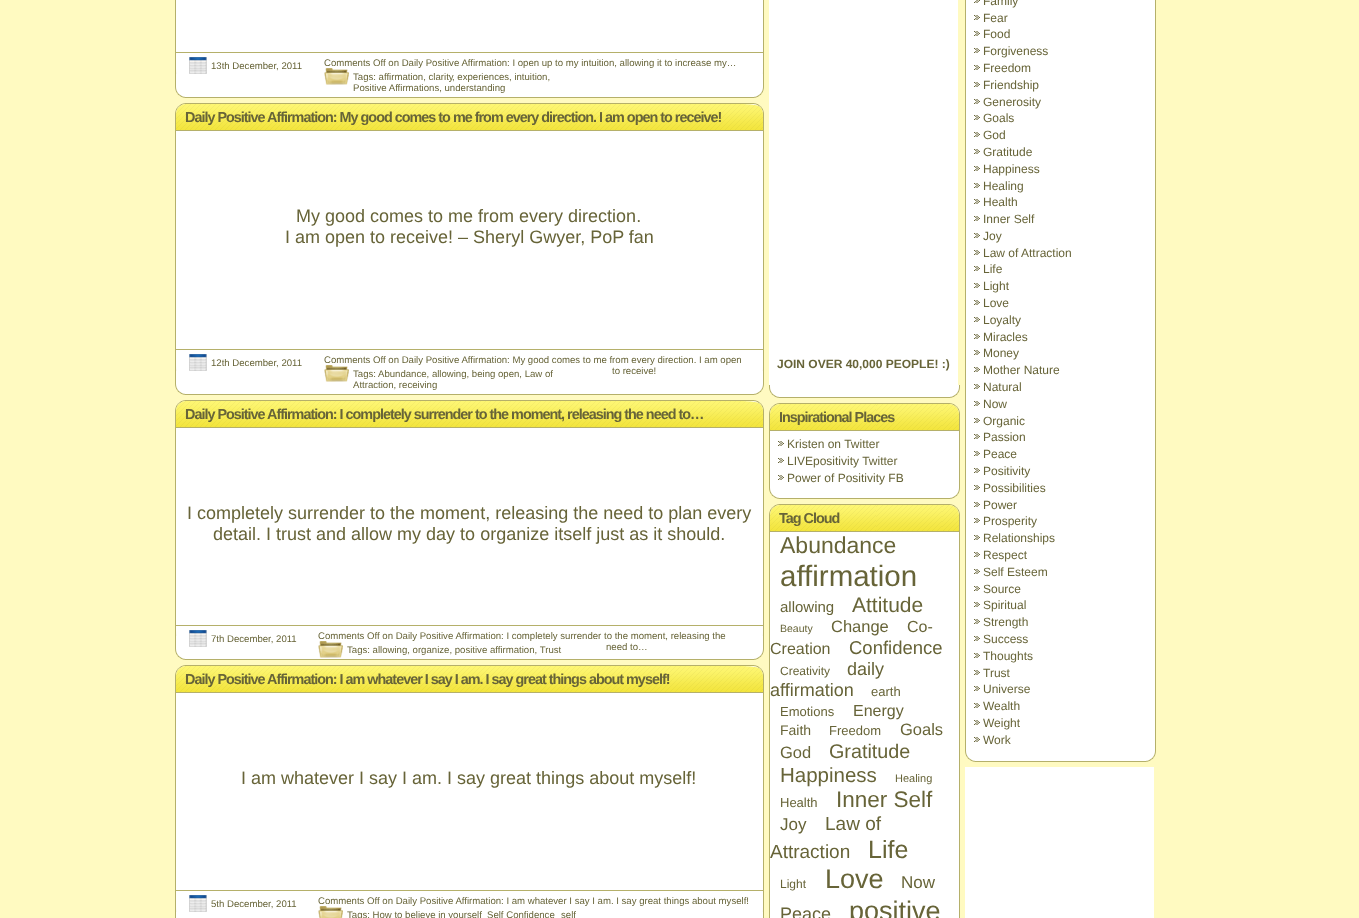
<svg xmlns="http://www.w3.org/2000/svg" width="1359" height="918">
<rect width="100%" height="100%" fill="#fffac1"/>
<image x="175" y="0" width="589" height="98" href="media/1.png"/>
<rect x="175" y="52" width="589" height="1" fill="#b5b06a"/>
<image x="189" y="57" width="18" height="17" href="media/2.png"/>
<text x="211" y="69" style="font-family:Liberation Sans;font-size:9.6px;fill:#676438">13th December, 2011</text>
<text x="324" y="66" style="font-family:Liberation Sans;font-size:9.6px;fill:#676438">Comments Off on Daily Positive Affirmation: I open up to my intuition, allowing it to increase my…</text>
<image x="324" y="68" width="25" height="17" href="media/3.png"/>
<text x="353" y="80" style="font-family:Liberation Sans;font-size:9.6px;fill:#676438">Tags: affirmation, clarity</text>
<text x="452" y="80" style="font-family:Liberation Sans;font-size:9.6px;fill:#676438">, experiences, intuition,</text>
<text x="353" y="91" style="font-family:Liberation Sans;font-size:9.6px;fill:#676438">Positive Affirmations, understanding</text>
<image x="175" y="350" width="589" height="45" href="media/4.png"/>
<image x="175" y="103" width="589" height="28" href="media/5.png"/>
<text x="185" y="122" style="font-family:Liberation Sans;font-size:14.4px;font-weight:bold;letter-spacing:-1px;fill:#676438">Daily Positive Affirmation: My good comes to me from every direction. I am open to receive!</text>
<rect x="176" y="131" width="587" height="218" fill="#fff"/>
<rect x="763" y="131" width="1" height="219" fill="#b5b06a"/>
<rect x="175" y="349" width="589" height="1" fill="#b5b06a"/>
<rect x="175" y="131" width="1" height="219" fill="#b5b06a"/>
<text x="296" y="222" style="font-family:Liberation Sans;font-size:18px;fill:#676438">My good comes to me from every direction.</text>
<text x="285" y="243" style="font-family:Liberation Sans;font-size:18px;fill:#676438">I am open to receive! – Sheryl Gwyer, PoP fan</text>
<image x="189" y="354" width="18" height="17" href="media/2.png"/>
<text x="211" y="366" style="font-family:Liberation Sans;font-size:9.6px;fill:#676438">12th December, 2011</text>
<text x="324" y="363" style="font-family:Liberation Sans;font-size:9.6px;fill:#676438">Comments Off on Daily Positive Affirmation: My good comes to me from every direction. I am open</text>
<image x="324" y="365" width="25" height="17" href="media/3.png"/>
<text x="353" y="377" style="font-family:Liberation Sans;font-size:9.6px;fill:#676438">Tags:</text>
<text x="378" y="377" style="font-family:Liberation Sans;font-size:9.6px;fill:#676438">Abundance, allowing, being open, Law of</text>
<text x="353" y="388" style="font-family:Liberation Sans;font-size:9.6px;fill:#676438">Attraction, receiving</text>
<text x="612" y="374" style="font-family:Liberation Sans;font-size:9.6px;fill:#676438">to receive!</text>
<image x="175" y="626" width="589" height="34" href="media/6.png"/>
<image x="175" y="400" width="589" height="28" href="media/5.png"/>
<text x="185" y="419" style="font-family:Liberation Sans;font-size:14.4px;font-weight:bold;letter-spacing:-1px;fill:#676438">Daily Positive Affirmation: I completely surrender to the moment, releasing the need to…</text>
<rect x="176" y="428" width="587" height="197" fill="#fff"/>
<rect x="763" y="428" width="1" height="198" fill="#b5b06a"/>
<rect x="175" y="625" width="589" height="1" fill="#b5b06a"/>
<rect x="175" y="428" width="1" height="198" fill="#b5b06a"/>
<text x="187" y="519" style="font-family:Liberation Sans;font-size:18px;fill:#676438">I completely surrender to the moment, releasing the need to plan every</text>
<text x="213" y="540" style="font-family:Liberation Sans;font-size:18px;fill:#676438">detail. I trust and allow my day to organize itself just as it should.</text>
<image x="189" y="630" width="18" height="17" href="media/2.png"/>
<text x="211" y="642" style="font-family:Liberation Sans;font-size:9.6px;fill:#676438">7th December, 2011</text>
<text x="318" y="639" style="font-family:Liberation Sans;font-size:9.6px;fill:#676438">Comments Off on Daily Positive Affirmation: I completely surrender to the moment, releasing the</text>
<image x="318" y="641" width="25" height="17" href="media/3.png"/>
<text x="347" y="653" style="font-family:Liberation Sans;font-size:9.6px;fill:#676438">Tags: allowing, organize, positive affirmation, Trust</text>
<text x="606" y="650" style="font-family:Liberation Sans;font-size:9.6px;fill:#676438">need to…</text>
<image x="175" y="891" width="589" height="27" href="media/7.png"/>
<image x="175" y="665" width="589" height="28" href="media/5.png"/>
<text x="185" y="684" style="font-family:Liberation Sans;font-size:14.4px;font-weight:bold;letter-spacing:-1px;fill:#676438">Daily Positive Affirmation: I am whatever I say I am. I say great things about myself!</text>
<rect x="176" y="693" width="587" height="197" fill="#fff"/>
<rect x="763" y="693" width="1" height="198" fill="#b5b06a"/>
<rect x="175" y="890" width="589" height="1" fill="#b5b06a"/>
<rect x="175" y="693" width="1" height="198" fill="#b5b06a"/>
<text x="241" y="784" style="font-family:Liberation Sans;font-size:18px;fill:#676438">I am whatever I say I am. I say great things about myself!</text>
<image x="189" y="895" width="18" height="17" href="media/2.png"/>
<text x="211" y="907" style="font-family:Liberation Sans;font-size:9.6px;fill:#676438">5th December, 2011</text>
<text x="318" y="904" style="font-family:Liberation Sans;font-size:9.6px;fill:#676438">Comments Off on Daily Positive Affirmation: I am whatever I say I am. I say great things about myself!</text>
<image x="318" y="906" width="25" height="12" href="media/8.png"/>
<text x="347" y="918" style="font-family:Liberation Sans;font-size:9.6px;fill:#676438">Tags: How to believe in yourself</text>
<text x="487" y="918" style="font-family:Liberation Sans;font-size:9.6px;fill:#676438">Self Confidence</text>
<text x="561" y="918" style="font-family:Liberation Sans;font-size:9.6px;fill:#676438">self</text>
<image x="769" y="385" width="191" height="13" href="media/9.png"/>
<rect x="769" width="189" height="385" fill="#fff"/>
<text x="777" y="368" style="font-family:Liberation Sans;font-size:12px;font-weight:bold;fill:#676438">JOIN OVER 40,000 PEOPLE! :)</text>
<image x="769" y="486" width="191" height="13" href="media/9.png"/>
<image x="769" y="403" width="191" height="28" href="media/10.png"/>
<text x="779" y="422" style="font-family:Liberation Sans;font-size:14.4px;font-weight:bold;letter-spacing:-1px;fill:#676438">Inspirational Places</text>
<rect x="770" y="431" width="189" height="55" fill="#fff"/>
<rect x="959" y="431" width="1" height="55" fill="#b5b06a"/>
<rect x="769" y="431" width="1" height="55" fill="#b5b06a"/>
<image x="778" y="441" width="6" height="5" href="media/11.png"/>
<text x="787" y="448" style="font-family:Liberation Sans;font-size:12px;fill:#676438">Kristen on Twitter</text>
<image x="778" y="458" width="6" height="5" href="media/11.png"/>
<text x="787" y="465" style="font-family:Liberation Sans;font-size:12px;fill:#676438">LIVEpositivity Twitter</text>
<image x="778" y="475" width="6" height="5" href="media/11.png"/>
<text x="787" y="482" style="font-family:Liberation Sans;font-size:12px;fill:#676438">Power of Positivity FB</text>
<image x="769" y="504" width="191" height="28" href="media/10.png"/>
<text x="779" y="523" style="font-family:Liberation Sans;font-size:14.4px;font-weight:bold;letter-spacing:-1px;fill:#676438">Tag Cloud</text>
<rect x="770" y="532" width="189" height="386" fill="#fff"/>
<rect x="959" y="532" width="1" height="386" fill="#b5b06a"/>
<rect x="769" y="532" width="1" height="386" fill="#b5b06a"/>
<text x="780" y="553" style="font-family:Liberation Sans;font-size:23px;fill:#676438">Abundance</text>
<text x="780" y="586" style="font-family:Liberation Sans;font-size:29.5px;fill:#676438">affirmation</text>
<text x="780" y="612" style="font-family:Liberation Sans;font-size:15px;fill:#676438">allowing</text>
<text x="852" y="612" style="font-family:Liberation Sans;font-size:21px;fill:#676438">Attitude</text>
<text x="780" y="632" style="font-family:Liberation Sans;font-size:10.5px;fill:#676438">Beauty</text>
<text x="831" y="632" style="font-family:Liberation Sans;font-size:16.5px;fill:#676438">Change</text>
<text x="907" y="632" style="font-family:Liberation Sans;font-size:16px;fill:#676438">Co-</text>
<text x="770" y="654" style="font-family:Liberation Sans;font-size:16px;fill:#676438">Creation</text>
<text x="849" y="654" style="font-family:Liberation Sans;font-size:18.5px;fill:#676438">Confidence</text>
<text x="780" y="675" style="font-family:Liberation Sans;font-size:12px;fill:#676438">Creativity</text>
<text x="847" y="675" style="font-family:Liberation Sans;font-size:18px;fill:#676438">daily</text>
<text x="770" y="696" style="font-family:Liberation Sans;font-size:18px;fill:#676438">affirmation</text>
<text x="871" y="696" style="font-family:Liberation Sans;font-size:13px;fill:#676438">earth</text>
<text x="780" y="716" style="font-family:Liberation Sans;font-size:13px;fill:#676438">Emotions</text>
<text x="853" y="716" style="font-family:Liberation Sans;font-size:16px;fill:#676438">Energy</text>
<text x="780" y="735" style="font-family:Liberation Sans;font-size:14px;fill:#676438">Faith</text>
<text x="829" y="735" style="font-family:Liberation Sans;font-size:13px;fill:#676438">Freedom</text>
<text x="900" y="735" style="font-family:Liberation Sans;font-size:16.5px;fill:#676438">Goals</text>
<text x="780" y="758" style="font-family:Liberation Sans;font-size:16.5px;fill:#676438">God</text>
<text x="829" y="758" style="font-family:Liberation Sans;font-size:19.75px;fill:#676438">Gratitude</text>
<text x="780" y="782" style="font-family:Liberation Sans;font-size:20.5px;fill:#676438">Happiness</text>
<text x="895" y="782" style="font-family:Liberation Sans;font-size:11px;fill:#676438">Healing</text>
<text x="780" y="807" style="font-family:Liberation Sans;font-size:13px;fill:#676438">Health</text>
<text x="836" y="807" style="font-family:Liberation Sans;font-size:22.5px;fill:#676438">Inner Self</text>
<text x="780" y="830" style="font-family:Liberation Sans;font-size:17px;fill:#676438">Joy</text>
<text x="825" y="830" style="font-family:Liberation Sans;font-size:19px;fill:#676438">Law of</text>
<text x="770" y="858" style="font-family:Liberation Sans;font-size:19px;fill:#676438">Attraction</text>
<text x="868" y="858" style="font-family:Liberation Sans;font-size:25px;fill:#676438">Life</text>
<text x="780" y="888" style="font-family:Liberation Sans;font-size:12px;fill:#676438">Light</text>
<text x="825" y="888" style="font-family:Liberation Sans;font-size:27px;fill:#676438">Love</text>
<text x="901" y="888" style="font-family:Liberation Sans;font-size:17px;fill:#676438">Now</text>
<text x="780" y="920" style="font-family:Liberation Sans;font-size:18px;fill:#676438">Peace</text>
<text x="849" y="920" style="font-family:Liberation Sans;font-size:27px;fill:#676438">positive</text>
<image x="965" y="749" width="191" height="13" href="media/9.png"/>
<rect x="966" width="189" height="749" fill="#fff"/>
<rect x="1155" width="1" height="749" fill="#b5b06a"/>
<rect x="965" width="1" height="749" fill="#b5b06a"/>
<image x="974" y="0" width="6" height="3" href="media/12.png"/>
<text x="983" y="5" style="font-family:Liberation Sans;font-size:12px;fill:#676438">Family</text>
<image x="974" y="15" width="6" height="5" href="media/11.png"/>
<text x="983" y="22" style="font-family:Liberation Sans;font-size:12px;fill:#676438">Fear</text>
<image x="974" y="31" width="6" height="5" href="media/11.png"/>
<text x="983" y="38" style="font-family:Liberation Sans;font-size:12px;fill:#676438">Food</text>
<image x="974" y="48" width="6" height="5" href="media/11.png"/>
<text x="983" y="55" style="font-family:Liberation Sans;font-size:12px;fill:#676438">Forgiveness</text>
<image x="974" y="65" width="6" height="5" href="media/11.png"/>
<text x="983" y="72" style="font-family:Liberation Sans;font-size:12px;fill:#676438">Freedom</text>
<image x="974" y="82" width="6" height="5" href="media/11.png"/>
<text x="983" y="89" style="font-family:Liberation Sans;font-size:12px;fill:#676438">Friendship</text>
<image x="974" y="99" width="6" height="5" href="media/11.png"/>
<text x="983" y="106" style="font-family:Liberation Sans;font-size:12px;fill:#676438">Generosity</text>
<image x="974" y="115" width="6" height="5" href="media/11.png"/>
<text x="983" y="122" style="font-family:Liberation Sans;font-size:12px;fill:#676438">Goals</text>
<image x="974" y="132" width="6" height="5" href="media/11.png"/>
<text x="983" y="139" style="font-family:Liberation Sans;font-size:12px;fill:#676438">God</text>
<image x="974" y="149" width="6" height="5" href="media/11.png"/>
<text x="983" y="156" style="font-family:Liberation Sans;font-size:12px;fill:#676438">Gratitude</text>
<image x="974" y="166" width="6" height="5" href="media/11.png"/>
<text x="983" y="173" style="font-family:Liberation Sans;font-size:12px;fill:#676438">Happiness</text>
<image x="974" y="183" width="6" height="5" href="media/11.png"/>
<text x="983" y="190" style="font-family:Liberation Sans;font-size:12px;fill:#676438">Healing</text>
<image x="974" y="199" width="6" height="5" href="media/11.png"/>
<text x="983" y="206" style="font-family:Liberation Sans;font-size:12px;fill:#676438">Health</text>
<image x="974" y="216" width="6" height="5" href="media/11.png"/>
<text x="983" y="223" style="font-family:Liberation Sans;font-size:12px;fill:#676438">Inner Self</text>
<image x="974" y="233" width="6" height="5" href="media/11.png"/>
<text x="983" y="240" style="font-family:Liberation Sans;font-size:12px;fill:#676438">Joy</text>
<image x="974" y="250" width="6" height="5" href="media/11.png"/>
<text x="983" y="257" style="font-family:Liberation Sans;font-size:12px;fill:#676438">Law of Attraction</text>
<image x="974" y="266" width="6" height="5" href="media/11.png"/>
<text x="983" y="273" style="font-family:Liberation Sans;font-size:12px;fill:#676438">Life</text>
<image x="974" y="283" width="6" height="5" href="media/11.png"/>
<text x="983" y="290" style="font-family:Liberation Sans;font-size:12px;fill:#676438">Light</text>
<image x="974" y="300" width="6" height="5" href="media/11.png"/>
<text x="983" y="307" style="font-family:Liberation Sans;font-size:12px;fill:#676438">Love</text>
<image x="974" y="317" width="6" height="5" href="media/11.png"/>
<text x="983" y="324" style="font-family:Liberation Sans;font-size:12px;fill:#676438">Loyalty</text>
<image x="974" y="334" width="6" height="5" href="media/11.png"/>
<text x="983" y="341" style="font-family:Liberation Sans;font-size:12px;fill:#676438">Miracles</text>
<image x="974" y="350" width="6" height="5" href="media/11.png"/>
<text x="983" y="357" style="font-family:Liberation Sans;font-size:12px;fill:#676438">Money</text>
<image x="974" y="367" width="6" height="5" href="media/11.png"/>
<text x="983" y="374" style="font-family:Liberation Sans;font-size:12px;fill:#676438">Mother Nature</text>
<image x="974" y="384" width="6" height="5" href="media/11.png"/>
<text x="983" y="391" style="font-family:Liberation Sans;font-size:12px;fill:#676438">Natural</text>
<image x="974" y="401" width="6" height="5" href="media/11.png"/>
<text x="983" y="408" style="font-family:Liberation Sans;font-size:12px;fill:#676438">Now</text>
<image x="974" y="418" width="6" height="5" href="media/11.png"/>
<text x="983" y="425" style="font-family:Liberation Sans;font-size:12px;fill:#676438">Organic</text>
<image x="974" y="434" width="6" height="5" href="media/11.png"/>
<text x="983" y="441" style="font-family:Liberation Sans;font-size:12px;fill:#676438">Passion</text>
<image x="974" y="451" width="6" height="5" href="media/11.png"/>
<text x="983" y="458" style="font-family:Liberation Sans;font-size:12px;fill:#676438">Peace</text>
<image x="974" y="468" width="6" height="5" href="media/11.png"/>
<text x="983" y="475" style="font-family:Liberation Sans;font-size:12px;fill:#676438">Positivity</text>
<image x="974" y="485" width="6" height="5" href="media/11.png"/>
<text x="983" y="492" style="font-family:Liberation Sans;font-size:12px;fill:#676438">Possibilities</text>
<image x="974" y="502" width="6" height="5" href="media/11.png"/>
<text x="983" y="509" style="font-family:Liberation Sans;font-size:12px;fill:#676438">Power</text>
<image x="974" y="518" width="6" height="5" href="media/11.png"/>
<text x="983" y="525" style="font-family:Liberation Sans;font-size:12px;fill:#676438">Prosperity</text>
<image x="974" y="535" width="6" height="5" href="media/11.png"/>
<text x="983" y="542" style="font-family:Liberation Sans;font-size:12px;fill:#676438">Relationships</text>
<image x="974" y="552" width="6" height="5" href="media/11.png"/>
<text x="983" y="559" style="font-family:Liberation Sans;font-size:12px;fill:#676438">Respect</text>
<image x="974" y="569" width="6" height="5" href="media/11.png"/>
<text x="983" y="576" style="font-family:Liberation Sans;font-size:12px;fill:#676438">Self Esteem</text>
<image x="974" y="586" width="6" height="5" href="media/11.png"/>
<text x="983" y="593" style="font-family:Liberation Sans;font-size:12px;fill:#676438">Source</text>
<image x="974" y="602" width="6" height="5" href="media/11.png"/>
<text x="983" y="609" style="font-family:Liberation Sans;font-size:12px;fill:#676438">Spiritual</text>
<image x="974" y="619" width="6" height="5" href="media/11.png"/>
<text x="983" y="626" style="font-family:Liberation Sans;font-size:12px;fill:#676438">Strength</text>
<image x="974" y="636" width="6" height="5" href="media/11.png"/>
<text x="983" y="643" style="font-family:Liberation Sans;font-size:12px;fill:#676438">Success</text>
<image x="974" y="653" width="6" height="5" href="media/11.png"/>
<text x="983" y="660" style="font-family:Liberation Sans;font-size:12px;fill:#676438">Thoughts</text>
<image x="974" y="670" width="6" height="5" href="media/11.png"/>
<text x="983" y="677" style="font-family:Liberation Sans;font-size:12px;fill:#676438">Trust</text>
<image x="974" y="686" width="6" height="5" href="media/11.png"/>
<text x="983" y="693" style="font-family:Liberation Sans;font-size:12px;fill:#676438">Universe</text>
<image x="974" y="703" width="6" height="5" href="media/11.png"/>
<text x="983" y="710" style="font-family:Liberation Sans;font-size:12px;fill:#676438">Wealth</text>
<image x="974" y="720" width="6" height="5" href="media/11.png"/>
<text x="983" y="727" style="font-family:Liberation Sans;font-size:12px;fill:#676438">Weight</text>
<image x="974" y="737" width="6" height="5" href="media/11.png"/>
<text x="983" y="744" style="font-family:Liberation Sans;font-size:12px;fill:#676438">Work</text>
<rect x="965" y="767" width="189" height="151" fill="#fff"/>
</svg>
